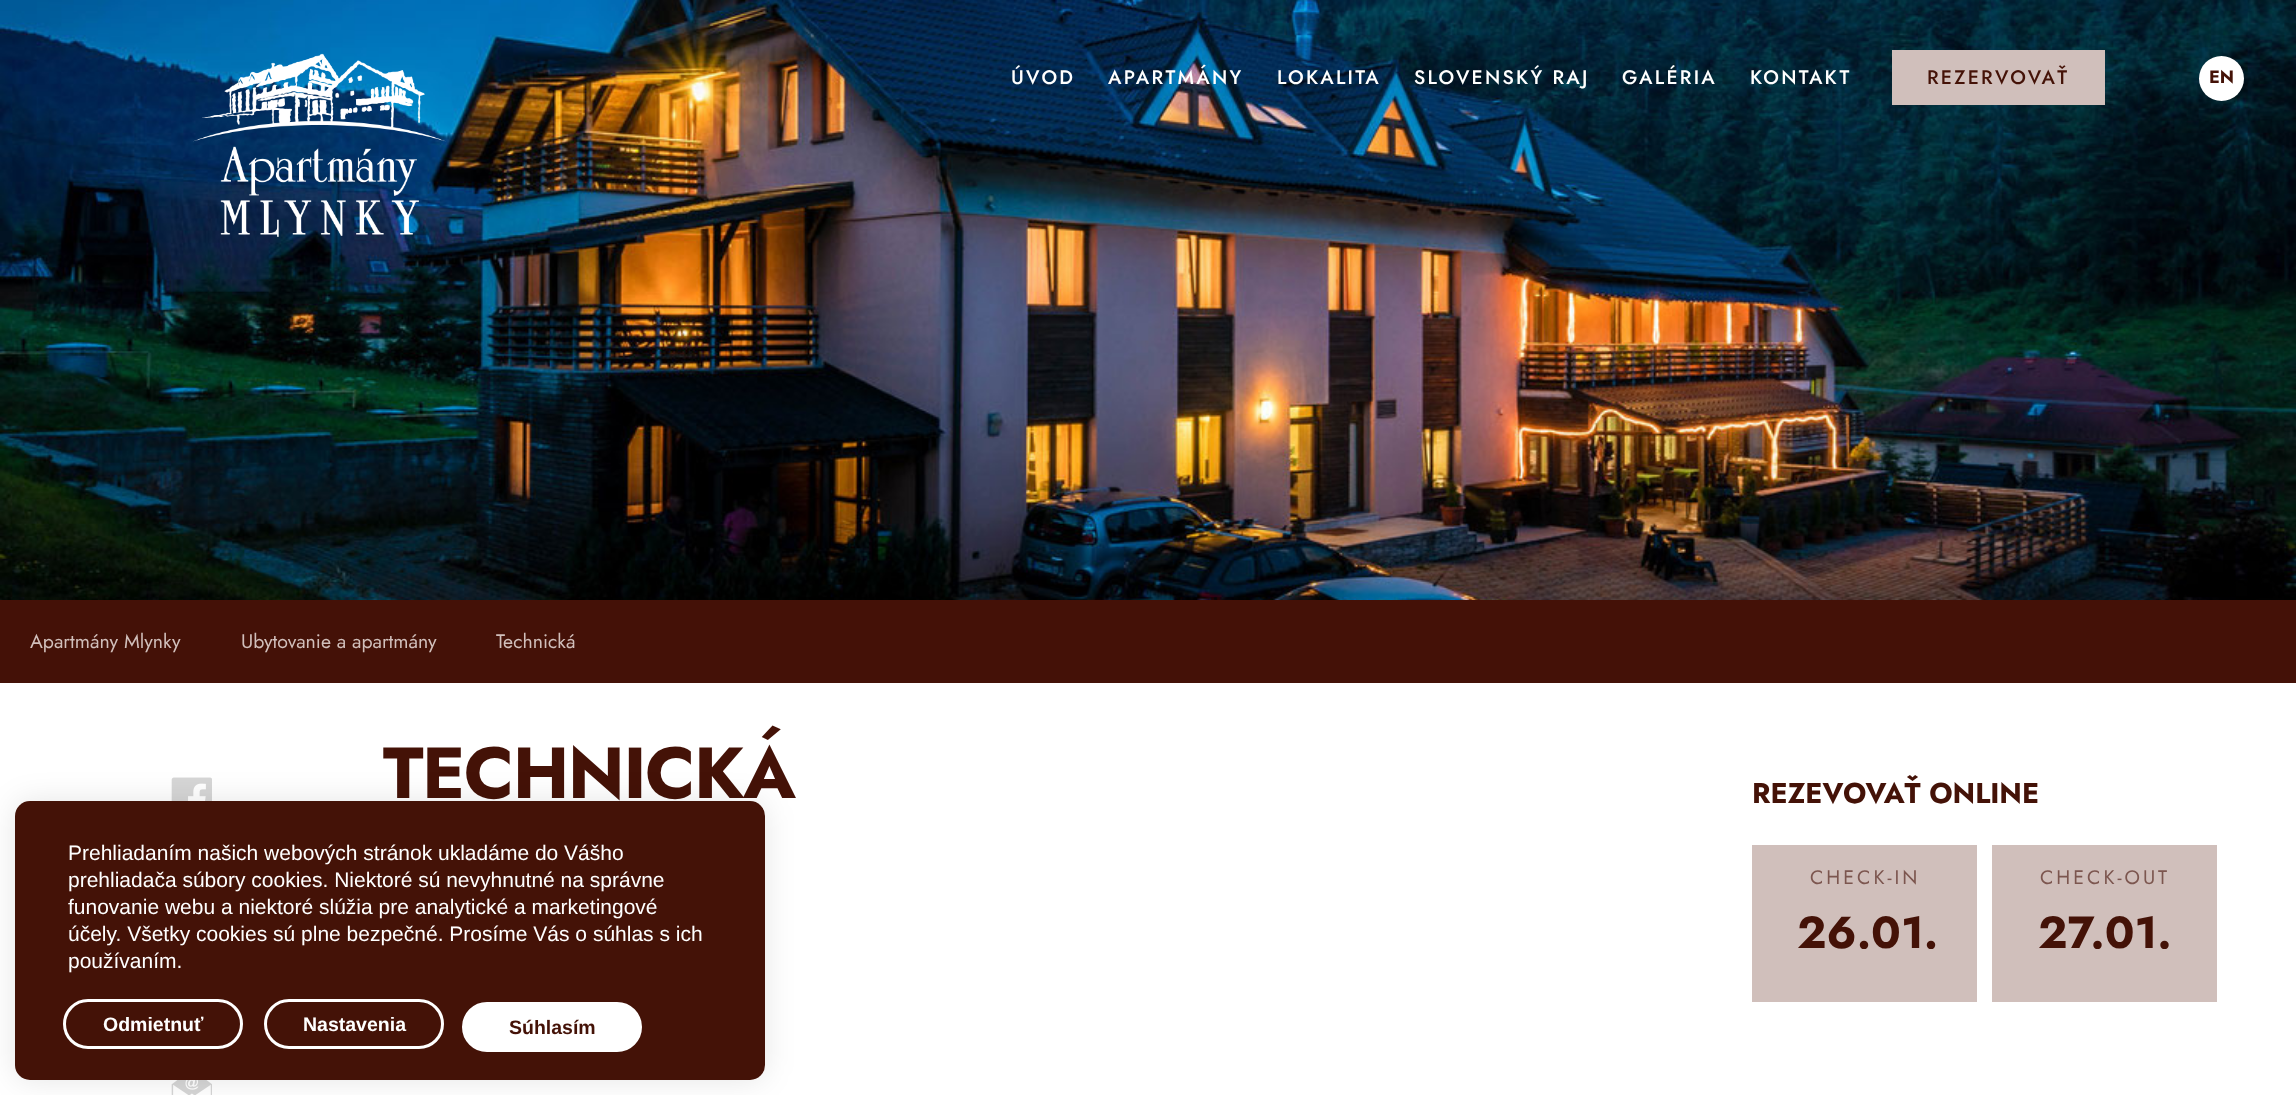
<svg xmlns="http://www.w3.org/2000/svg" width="2296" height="1095">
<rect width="100%" height="100%" fill="#fff"/>
<image x="0" y="0" width="2296" height="600" href="media/2.png"/>
<image x="193" y="53" width="253" height="184" href="media/1.png"/>
<text x="1011" y="84" style="font-family:Jost;font-size:19.5px;font-weight:500;letter-spacing:2.25px;fill:#fff">ÚVOD</text>
<text x="1108" y="84" style="font-family:Jost;font-size:19.5px;font-weight:500;letter-spacing:2.25px;fill:#fff">APARTMÁNY</text>
<text x="1277" y="84" style="font-family:Jost;font-size:19.5px;font-weight:500;letter-spacing:2.25px;fill:#fff">LOKALITA</text>
<text x="1414" y="84" style="font-family:Jost;font-size:19.5px;font-weight:500;letter-spacing:2.25px;fill:#fff">SLOVENSKÝ RAJ</text>
<text x="1622" y="84" style="font-family:Jost;font-size:19.5px;font-weight:500;letter-spacing:2.25px;fill:#fff">GALÉRIA</text>
<text x="1750" y="84" style="font-family:Jost;font-size:19.5px;font-weight:500;letter-spacing:2.25px;fill:#fff">KONTAKT</text>
<rect x="1892" y="50" width="213" height="55" fill="#d0bfbb"/>
<text x="1927" y="84" style="font-family:Jost;font-size:19.5px;font-weight:500;letter-spacing:2.25px;fill:#441207">REZERVOVAŤ</text>
<circle cx="2221.5" cy="78.5" r="22.5" fill="#fff"/>
<text x="2209" y="83" style="font-family:Jost;font-size:18px;font-weight:bold;fill:#441207">EN</text>
<rect y="600" width="2296" height="83" fill="#441107"/>
<text x="30" y="648" style="font-family:Jost;font-size:19.5px;fill:#d1bfbb">Apartmány Mlynky</text>
<text x="241" y="648" style="font-family:Jost;font-size:19.5px;fill:#d1bfbb">Ubytovanie a apartmány</text>
<text x="496" y="648" style="font-family:Jost;font-size:19.5px;fill:#d1bfbb">Technická</text>
<text x="383" y="798" style="font-family:Jost;font-size:72px;font-weight:bold;letter-spacing:-1.5px;fill:#441207">TECHNICKÁ</text>
<image x="171" y="777" width="41" height="24" href="media/3.png"/>
<image x="171" y="1080" width="41" height="15" href="media/4.png"/>
<text x="1752" y="803" style="font-family:Jost;font-size:28.5px;font-weight:bold;fill:#441207">REZEVOVAŤ ONLINE</text>
<rect x="1752" y="845" width="225" height="157" fill="#d0bfbb"/>
<text x="1810" y="884" style="font-family:Jost;font-size:19.5px;letter-spacing:3px;fill:#7c564f">CHECK-IN</text>
<text x="1797" y="948" style="font-family:Jost;font-size:45px;font-weight:bold;fill:#441207">26.01.</text>
<rect x="1992" y="845" width="225" height="157" fill="#d0bfbb"/>
<text x="2040" y="884" style="font-family:Jost;font-size:19.5px;letter-spacing:3px;fill:#7c564f">CHECK-OUT</text>
<text x="2038" y="948" style="font-family:Jost;font-size:45px;font-weight:bold;fill:#441207">27.01.</text>
<rect x="15" y="801" width="750" height="279" rx="15" fill="#0000001a" filter="blur(15px)"/>
<rect x="15" y="801" width="750" height="279" rx="15" fill="#441207"/>
<text x="68" y="860" style="font-family:Liberation Sans;font-size:21px;fill:#fff">Prehliadaním našich webových stránok ukladáme do Vášho</text>
<text x="68" y="887" style="font-family:Liberation Sans;font-size:21px;fill:#fff">prehliadača súbory cookies. Niektoré sú nevyhnutné na správne</text>
<text x="68" y="914" style="font-family:Liberation Sans;font-size:21px;fill:#fff">funovanie webu a niektoré slúžia pre analytické a marketingové</text>
<text x="68" y="941" style="font-family:Liberation Sans;font-size:21px;fill:#fff">účely. Všetky cookies sú plne bezpečné. Prosíme Vás o súhlas s ich</text>
<text x="68" y="968" style="font-family:Liberation Sans;font-size:21px;fill:#fff">používaním.</text>
<rect x="64.5" y="1000.5" width="177" height="47" rx="23.5" fill="none" stroke="#fff" stroke-width="3"/>
<text x="103" y="1031" style="font-family:Liberation Sans;font-size:19.5px;font-weight:bold;fill:#fff">Odmietnuť</text>
<rect x="265.5" y="1000.5" width="177" height="47" rx="23.5" fill="none" stroke="#fff" stroke-width="3"/>
<text x="303" y="1031" style="font-family:Liberation Sans;font-size:19.5px;font-weight:bold;fill:#fff">Nastavenia</text>
<rect x="463.5" y="1003.5" width="177" height="47" rx="23.5" fill="#fff" stroke="#fff" stroke-width="3"/>
<text x="509" y="1034" style="font-family:Liberation Sans;font-size:19.5px;font-weight:bold;fill:#441207">Súhlasím</text>
</svg>
